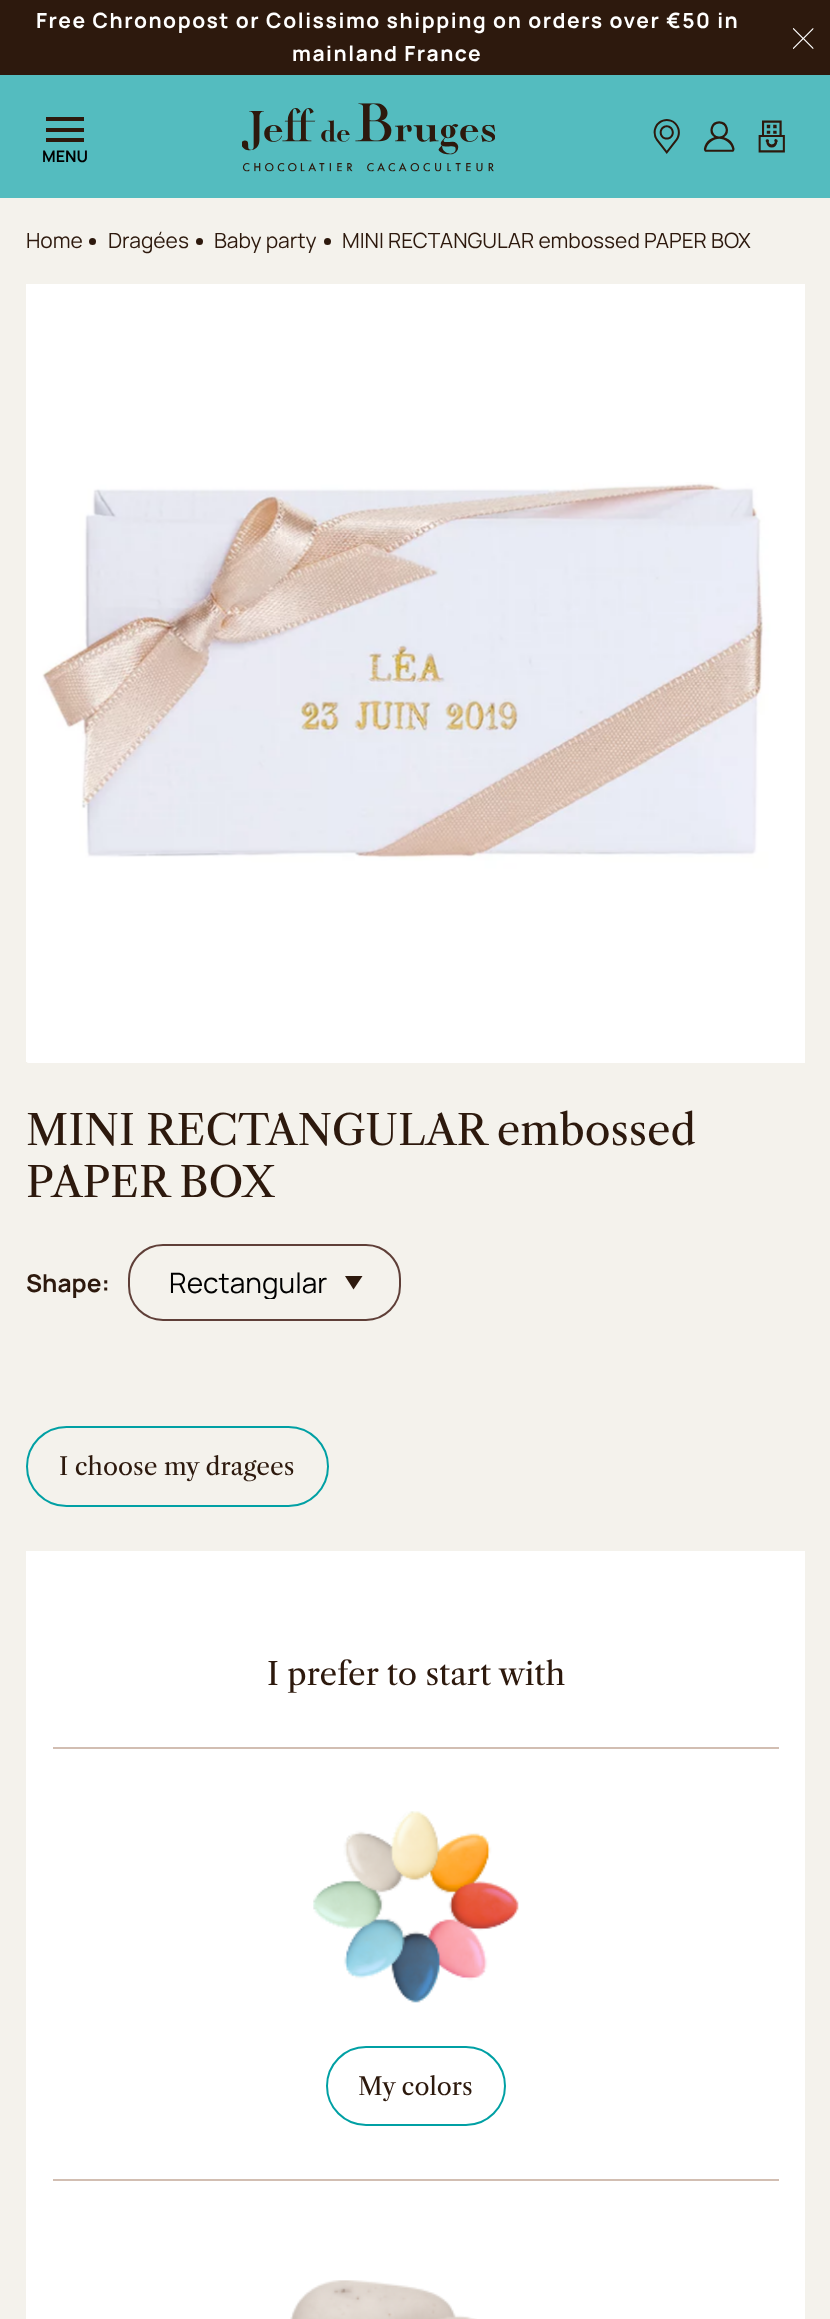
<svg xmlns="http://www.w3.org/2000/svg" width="830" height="2319">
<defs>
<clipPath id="clip1"><rect x="170" y="1267" width="159" height="32"/></clipPath>
</defs>
<rect width="100%" height="100%" fill="#f4f2ec"/>
<rect y="75" width="830" height="123" fill="#54bcbf"/>
<rect width="830" height="75" fill="#2d190d"/>
<text x="36" y="28" style="font-family:Manrope;font-size:21px;font-weight:bold;letter-spacing:1.57px;fill:#fff">Free Chronopost or Colissimo shipping on orders over €50 in</text>
<text x="292" y="61" style="font-family:Manrope;font-size:21px;font-weight:bold;letter-spacing:1.57px;fill:#fff">mainland France</text>
<image x="793" y="28" width="21" height="21" href="media/1.png"/>
<image x="242" y="103" width="253" height="69" href="media/2.png"/>
<image x="653" y="119" width="27" height="35" href="media/3.png"/>
<image x="703" y="121" width="32" height="31" href="media/4.png"/>
<image x="758" y="120" width="27" height="33" href="media/5.png"/>
<rect x="46" y="128" width="38" height="4" fill="#2d190d"/>
<rect x="46" y="117" width="38" height="4" fill="#2d190d"/>
<rect x="46" y="138" width="38" height="4" fill="#2d190d"/>
<text x="42" y="162" style="font-family:Manrope;font-size:16px;font-weight:bold;fill:#000">MENU</text>
<text x="26" y="248" style="font-family:Manrope;font-size:21px;fill:#2d190d">Home</text>
<circle cx="92.5" cy="241.5" r="3.5" fill="#2d190d"/>
<text x="108" y="248" style="font-family:Manrope;font-size:21px;fill:#2d190d">Dragées</text>
<circle cx="199.5" cy="241.5" r="3.5" fill="#2d190d"/>
<text x="214" y="248" style="font-family:Manrope;font-size:21px;fill:#2d190d">Baby party</text>
<circle cx="327.5" cy="241.5" r="3.5" fill="#2d190d"/>
<text x="342" y="248" style="font-family:Manrope;font-size:21px;fill:#2d190d">MINI RECTANGULAR embossed PAPER BOX</text>
<rect x="26" y="284" width="779" height="778" fill="#fff"/>
<image x="27" y="482" width="778" height="581" href="media/6.png"/>
<text x="26" y="1145" style="font-family:Libre Caslon Text;font-size:42px;fill:#2d190d">MINI RECTANGULAR embossed</text>
<text x="26" y="1197" style="font-family:Libre Caslon Text;font-size:42px;fill:#2d190d">PAPER BOX</text>
<text x="26" y="1292" style="font-family:Manrope;font-size:24.5px;font-weight:bold;fill:#2d190d">Shape:</text>
<path d="M345 1276h17.5l-9 13.5" fill="#2d190d"/>
<rect x="129" y="1245" width="271" height="75" rx="34" fill="none" stroke="#5f3f38" stroke-width="2"/>
<g clip-path="url(#clip1)">
<text x="169" y="1293" style="font-family:Manrope;font-size:28px;fill:#000">Rectangular</text>
</g>
<rect x="27" y="1427" width="301" height="79" rx="39.5" fill="none" stroke="#00a0a4" stroke-width="2"/>
<text x="59" y="1475" style="font-family:Libre Caslon Text;font-size:24.5px;fill:#2d190d">I choose my dragees</text>
<rect x="26" y="1551" width="779" height="768" fill="#fff"/>
<rect x="53" y="1747" width="726" height="2" fill="#d2beb2"/>
<text x="267" y="1685" style="font-family:Libre Caslon Text;font-size:31.5px;fill:#2d190d">I prefer to start with</text>
<image x="313" y="1811" width="206" height="192" href="media/7.png"/>
<rect x="327" y="2047" width="178" height="78" rx="39" fill="none" stroke="#00a0a4" stroke-width="2"/>
<text x="358" y="2095" style="font-family:Libre Caslon Text;font-size:24.5px;fill:#2d190d">My colors</text>
<rect x="53" y="2179" width="726" height="2" fill="#d2beb2"/>
<image x="290" y="2280" width="187" height="39" href="media/8.png"/>
</svg>
